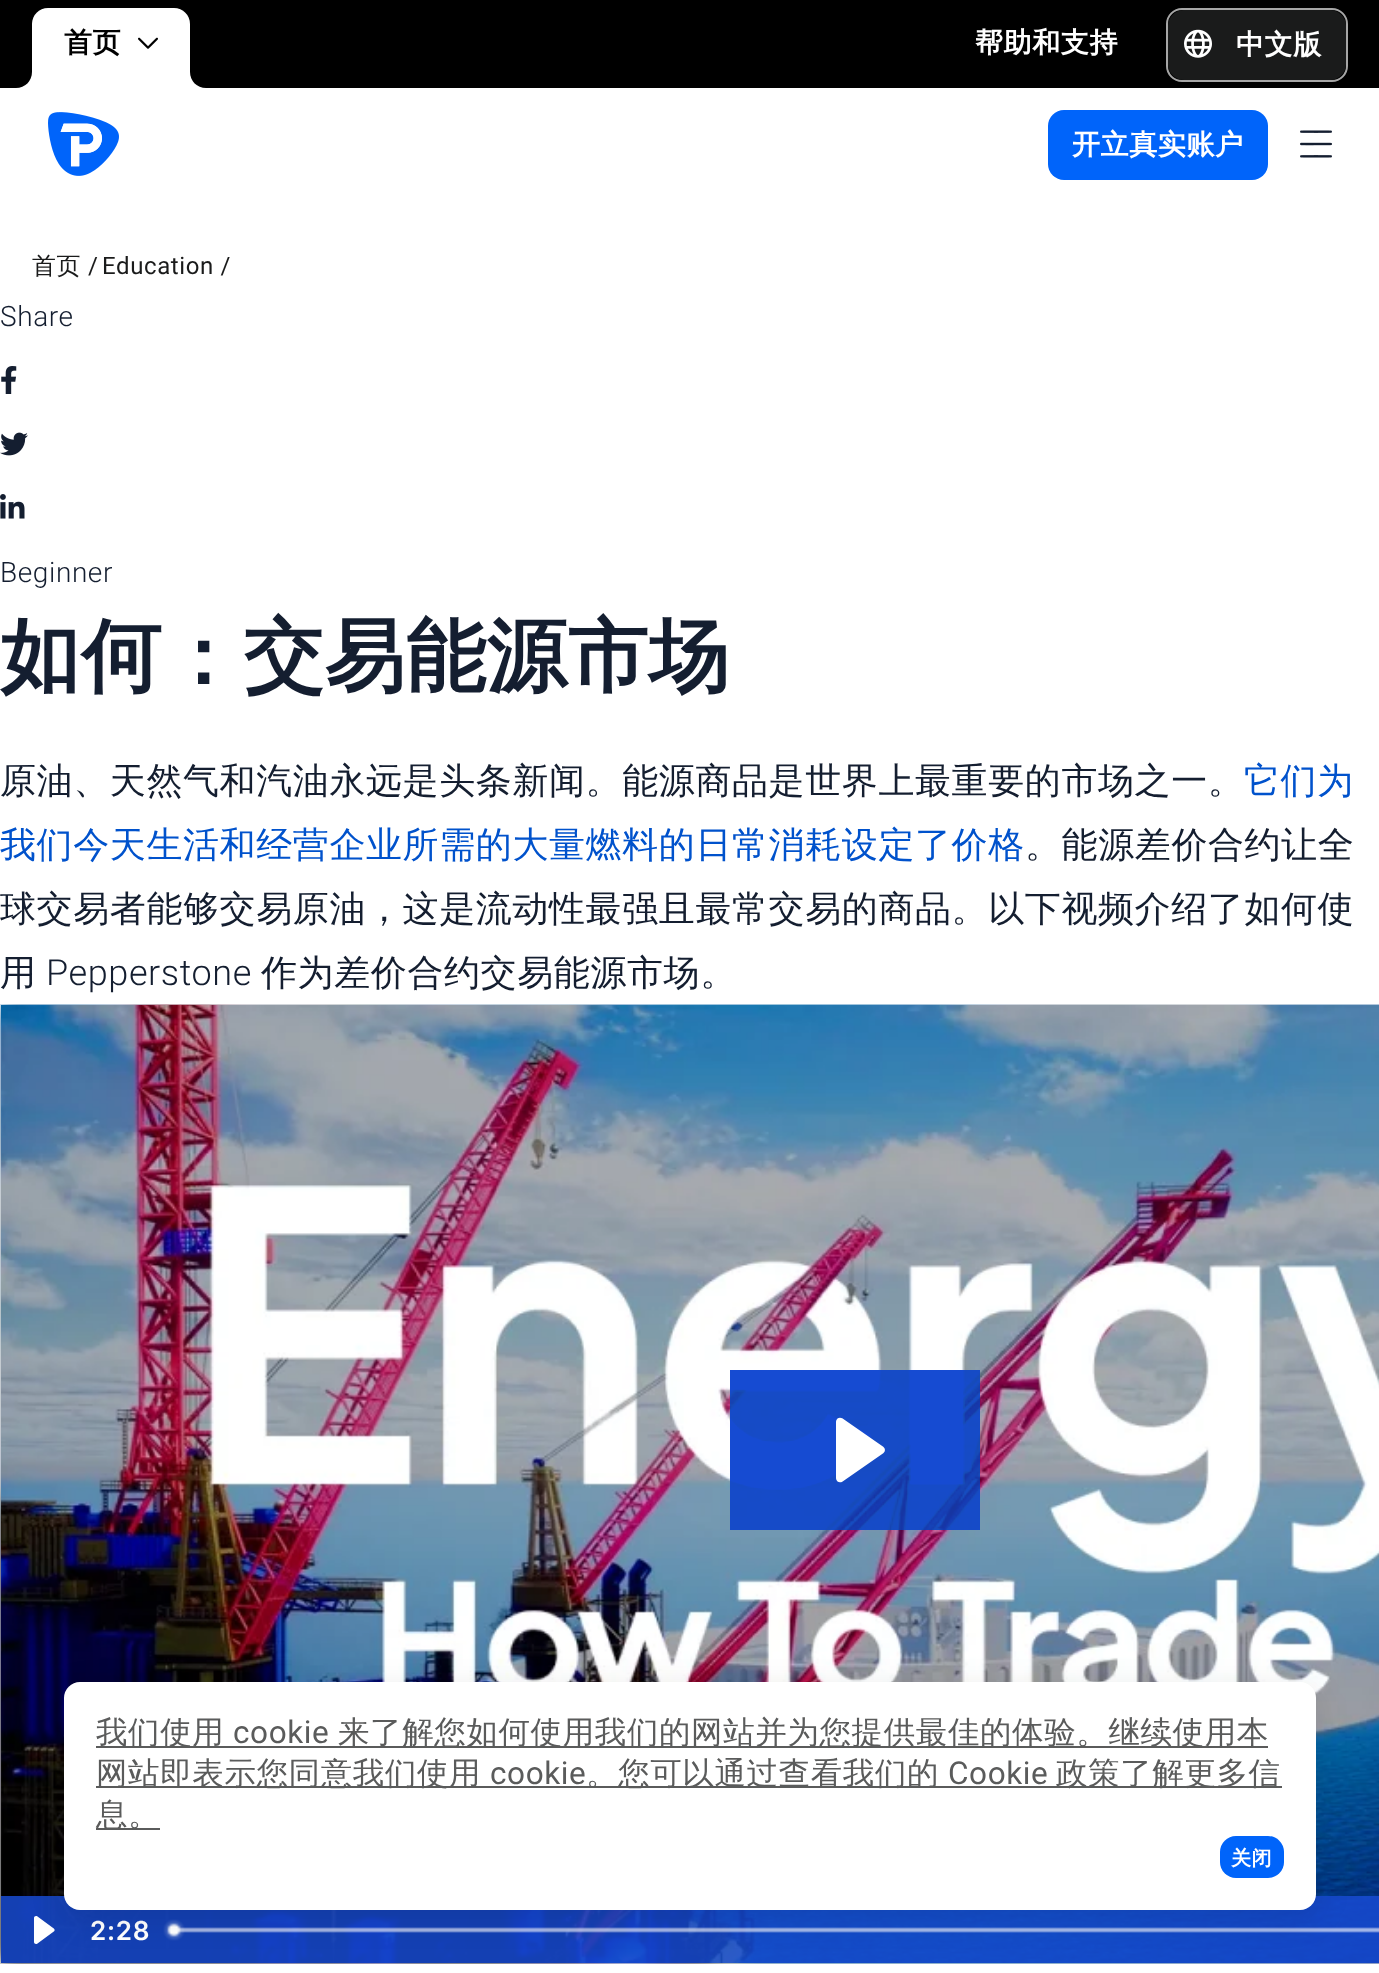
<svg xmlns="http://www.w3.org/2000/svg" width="1379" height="1973">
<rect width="100%" height="100%" fill="#fff"/>
<rect width="1379" height="88" fill="#000"/>
<path d="M48 8h126c9 0 16 7 16 16v64h-158v-64c0-9 7-16 16-16z" fill="#fff"/>
<text x="64" y="52" style="font-family:WenQuanYi Zen Hei;font-size:28px;font-weight:bold;letter-spacing:0.6px;fill:#000">首页</text>
<image x="138" y="37" width="20" height="12" href="media/1.png"/>
<rect x="16" y="72" width="16" height="16" fill="#fff"/>
<path d="M16 56c9 0 16 7 16 16c0 9-7 16-16 16z" fill="#000"/>
<rect x="190" y="72" width="16" height="16" fill="#fff"/>
<path d="M206 56v32c-9 0-16-7-16-16c0-9 7-16 16-16z" fill="#000"/>
<text x="975" y="52" style="font-family:WenQuanYi Zen Hei;font-size:28px;font-weight:bold;letter-spacing:0.6px;fill:#fff">帮助和支持</text>
<rect x="1167" y="9" width="180" height="72" rx="15" fill="none" stroke="#a6a6a6" stroke-width="2"/>
<rect x="1168" y="10" width="178" height="70" rx="16" fill="#1a1b1b"/>
<image x="1184" y="29" width="28" height="29" href="media/2.png"/>
<text x="1236" y="54" style="font-family:WenQuanYi Zen Hei;font-size:28px;font-weight:bold;letter-spacing:0.6px;fill:#fff">中文版</text>
<image x="48" y="112" width="71" height="64" href="media/3.png"/>
<rect x="1048" y="110" width="220" height="70" rx="16" fill="#0064fa"/>
<text x="1072" y="154" style="font-family:WenQuanYi Zen Hei;font-size:28px;font-weight:bold;letter-spacing:0.6px;fill:#fff">开立真实账户</text>
<image x="1300" y="130" width="32" height="28" href="media/4.png"/>
<text x="32" y="274" style="font-family:WenQuanYi Zen Hei;font-size:24px;font-weight:500;letter-spacing:0.6px;fill:#1a1b1b">首页</text>
<text x="88" y="274" style="font-family:Roboto;font-size:24px;letter-spacing:0.6px;fill:#1a1b1b">/</text>
<text x="102" y="274" style="font-family:Roboto;font-size:24px;letter-spacing:0.6px;fill:#1a1b1b">Education /</text>
<text x="0" y="326" style="font-family:Roboto;font-size:28px;font-weight:300;letter-spacing:0.6px;fill:#141e30">Share</text>
<image x="1" y="366" width="16" height="28" href="media/5.png"/>
<image x="0" y="432" width="28" height="24" href="media/6.png"/>
<image x="0" y="494" width="25" height="25" href="media/7.png"/>
<text x="0" y="582" style="font-family:Roboto;font-size:28px;font-weight:300;letter-spacing:0.6px;fill:#141e30">Beginner</text>
<text x="0" y="684" style="font-family:WenQuanYi Zen Hei;font-size:80.5px;font-weight:bold;letter-spacing:0.6px;fill:#141e30">如何：交易能源市场</text>
<text x="0" y="793" style="font-family:WenQuanYi Zen Hei;font-size:36px;font-weight:500;letter-spacing:0.6px;fill:#141e30">原油、天然气和汽油永远是头条新闻。能源商品是世界上最重要的市场之一。</text>
<text x="1244" y="793" style="font-family:WenQuanYi Zen Hei;font-size:36px;font-weight:500;letter-spacing:0.6px;fill:#0052cc">它们为</text>
<text x="0" y="857" style="font-family:WenQuanYi Zen Hei;font-size:36px;font-weight:500;letter-spacing:0.6px;fill:#0052cc">我们今天生活和经营企业所需的大量燃料的日常消耗设定了价格</text>
<text x="1025" y="857" style="font-family:WenQuanYi Zen Hei;font-size:36px;font-weight:500;letter-spacing:0.6px;fill:#141e30">。能源差价合约让全</text>
<text x="0" y="921" style="font-family:WenQuanYi Zen Hei;font-size:36px;font-weight:500;letter-spacing:0.6px;fill:#141e30">球交易者能够交易原油，这是流动性最强且最常交易的商品。以下视频介绍了如何使</text>
<text x="0" y="985" style="font-family:WenQuanYi Zen Hei;font-size:36px;font-weight:500;letter-spacing:0.6px;fill:#141e30">用</text>
<text x="46" y="985" style="font-family:Roboto;font-size:36px;font-weight:300;letter-spacing:0.6px;fill:#141e30">Pepperstone</text>
<text x="261" y="985" style="font-family:WenQuanYi Zen Hei;font-size:36px;font-weight:500;letter-spacing:0.6px;fill:#141e30">作为差价合约交易能源市场。</text>
<image x="0" y="1004" width="1379" height="960" href="media/8.png"/>
<rect x="64" y="1690" width="1252" height="228" rx="16" fill="#0000001a" filter="blur(16px)"/>
<rect x="64" y="1682" width="1252" height="228" rx="16" fill="#fff"/>
<rect x="96" y="1746" width="1172" height="2" fill="#5a5b5b"/>
<text x="96" y="1743" style="font-family:WenQuanYi Zen Hei;font-size:31.5px;font-weight:500;letter-spacing:0.6px;fill:#5a5b5b">我们使用</text>
<text x="233" y="1743" style="font-family:Roboto;font-size:31.5px;letter-spacing:0.6px;fill:#5a5b5b">cookie</text>
<text x="338" y="1743" style="font-family:WenQuanYi Zen Hei;font-size:31.5px;font-weight:500;letter-spacing:0.6px;fill:#5a5b5b">来了解您如何使用我们的网站并为您提供最佳的体验。继续使用本</text>
<rect x="96" y="1786" width="1186" height="2" fill="#5a5b5b"/>
<text x="96" y="1784" style="font-family:WenQuanYi Zen Hei;font-size:31.5px;font-weight:500;letter-spacing:0.6px;fill:#5a5b5b">网站即表示您同意我们使用</text>
<text x="490" y="1784" style="font-family:Roboto;font-size:31.5px;letter-spacing:0.6px;fill:#5a5b5b">cookie</text>
<text x="586" y="1784" style="font-family:WenQuanYi Zen Hei;font-size:31.5px;font-weight:500;letter-spacing:0.6px;fill:#5a5b5b">。您可以通过查看我们的</text>
<text x="948" y="1784" style="font-family:Roboto;font-size:31.5px;letter-spacing:0.6px;fill:#5a5b5b">Cookie</text>
<text x="1056" y="1784" style="font-family:WenQuanYi Zen Hei;font-size:31.5px;font-weight:500;letter-spacing:0.6px;fill:#5a5b5b">政策了解更多信</text>
<rect x="96" y="1828" width="64" height="2" fill="#5a5b5b"/>
<text x="96" y="1825" style="font-family:WenQuanYi Zen Hei;font-size:31.5px;font-weight:500;letter-spacing:0.6px;fill:#5a5b5b">息。</text>
<rect x="1220" y="1836" width="64" height="42" rx="16" fill="#0064fa"/>
<text x="1231" y="1865" style="font-family:WenQuanYi Zen Hei;font-size:20px;font-weight:bold;letter-spacing:0.6px;fill:#fff">关闭</text>
</svg>
